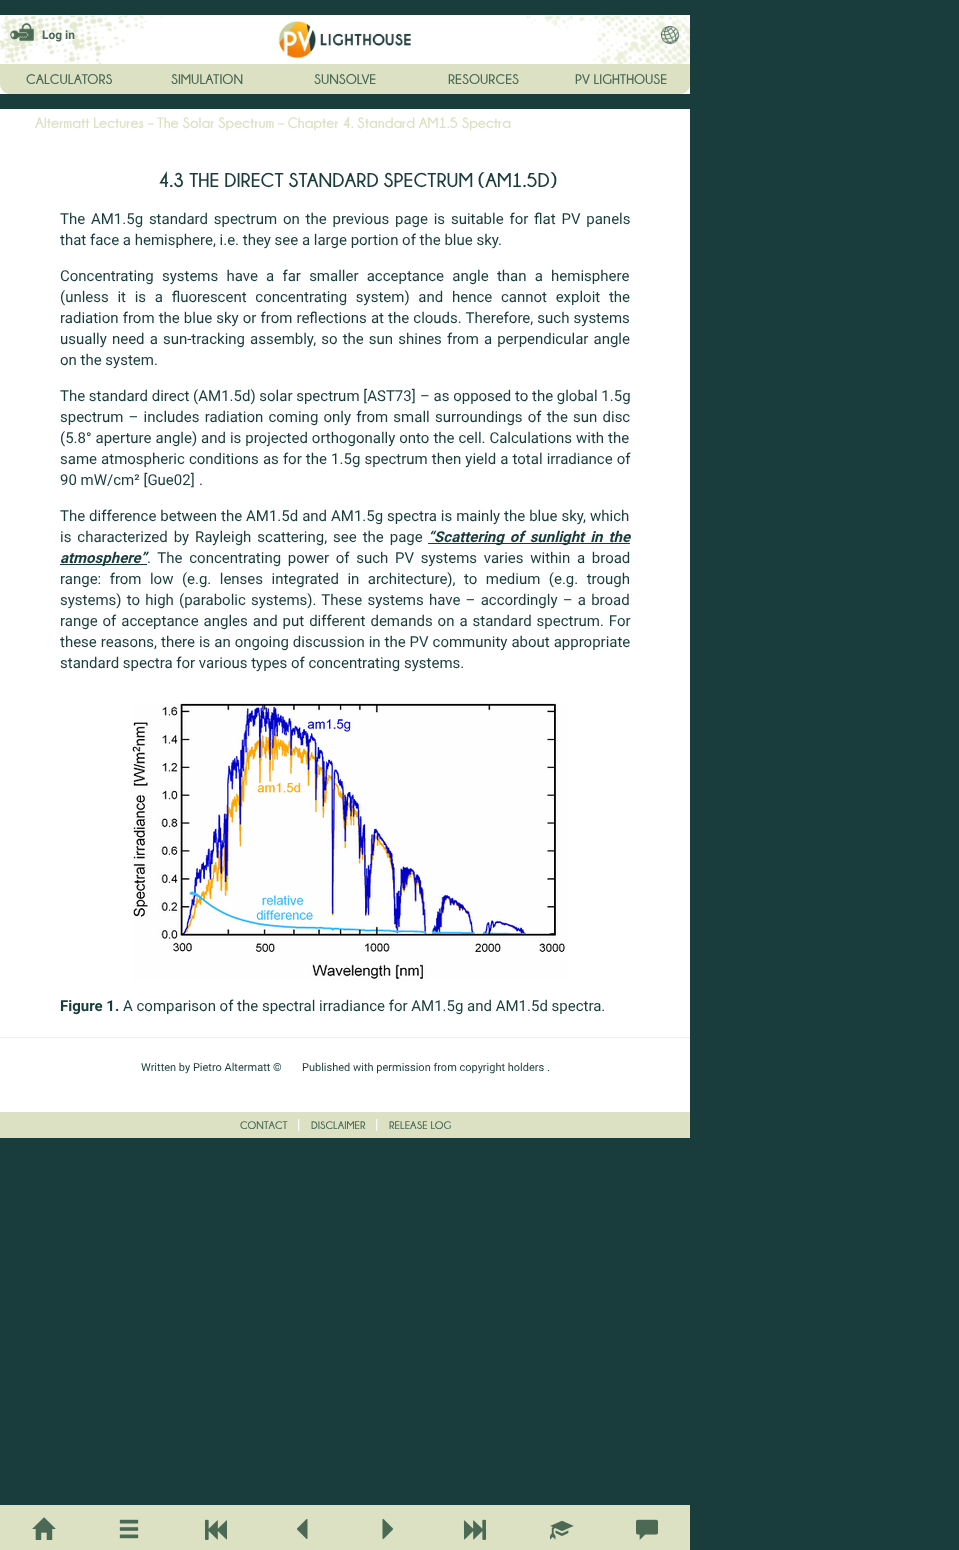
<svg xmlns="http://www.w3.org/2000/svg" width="959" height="1550">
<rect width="100%" height="100%" fill="#193c3c"/>
<rect y="15" width="690" height="79" fill="#fff"/>
<image x="0" y="15" width="690" height="49" href="media/1.png"/>
<image x="278" y="21" width="133" height="38" href="media/2.png"/>
<image x="10" y="23" width="24" height="18" href="media/3.png"/>
<text x="42" y="39" style="font-family:Roboto;font-size:12px;font-weight:bold;fill:#4b6955">Log in</text>
<image x="661" y="26" width="18" height="18" href="media/4.png"/>
<path d="M0 64h690v20c0 5.5-4.5 10-10 10h-670c-5.5 0-10-4.5-10-10z" fill="#dce1c3"/>
<text x="26" y="84" style="font-family:'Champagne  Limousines';font-size:14px;font-weight:bold;fill:#4b6955">CALCULATORS</text>
<text x="171" y="84" style="font-family:'Champagne  Limousines';font-size:14px;font-weight:bold;fill:#4b6955">SIMULATION</text>
<text x="314" y="84" style="font-family:'Champagne  Limousines';font-size:14px;font-weight:bold;fill:#4b6955">SUNSOLVE</text>
<text x="448" y="84" style="font-family:'Champagne  Limousines';font-size:14px;font-weight:bold;fill:#4b6955">RESOURCES</text>
<text x="575" y="84" style="font-family:'Champagne  Limousines';font-size:14px;font-weight:bold;fill:#4b6955">PV LIGHTHOUSE</text>
<rect y="109" width="690" height="1003" fill="#fff"/>
<text x="35" y="128" style="font-family:'Champagne  Limousines';font-size:15px;font-weight:bold;fill:#dce1c3">Altermatt Lectures – The Solar Spectrum – Chapter 4. Standard AM1.5 Spectra</text>
<text x="158" y="187" style="font-family:'Champagne  Limousines';font-size:20px;font-weight:bold;fill:#193c3c">4.3 THE DIRECT STANDARD SPECTRUM (AM1.5D)</text>
<text x="60" y="224" word-spacing="2.1" style="font-family:Roboto;font-size:15px;fill:#193c3c">The AM1.5g standard spectrum on the previous page is suitable for flat PV panels</text>
<text x="60" y="245" style="font-family:Roboto;font-size:15px;fill:#193c3c">that face a hemisphere, i.e. they see a large portion of the blue sky.</text>
<text x="60" y="281" word-spacing="4.5" style="font-family:Roboto;font-size:15px;fill:#193c3c">Concentrating systems have a far smaller acceptance angle than a hemisphere</text>
<text x="60" y="302" word-spacing="5" style="font-family:Roboto;font-size:15px;fill:#193c3c">(unless it is a fluorescent concentrating system) and hence cannot exploit the</text>
<text x="60" y="323" word-spacing="0.4" style="font-family:Roboto;font-size:15px;fill:#193c3c">radiation from the blue sky or from reflections at the clouds. Therefore, such systems</text>
<text x="60" y="344" word-spacing="1.4" style="font-family:Roboto;font-size:15px;fill:#193c3c">usually need a sun-tracking assembly, so the sun shines from a perpendicular angle</text>
<text x="60" y="365" style="font-family:Roboto;font-size:15px;fill:#193c3c">on the system.</text>
<text x="60" y="401" style="font-family:Roboto;font-size:15px;fill:#193c3c">The standard direct (AM1.5d) solar spectrum [AST73]</text>
<text x="420" y="401" style="font-family:Roboto;font-size:15px;fill:#193c3c">– as opposed to the global 1.5g</text>
<text x="60" y="422" word-spacing="1.5" style="font-family:Roboto;font-size:15px;fill:#193c3c">spectrum – includes radiation coming only from small surroundings of the sun disc</text>
<text x="60" y="443" word-spacing="0.25" style="font-family:Roboto;font-size:15px;fill:#193c3c">(5.8° aperture angle) and is projected orthogonally onto the cell. Calculations with the</text>
<text x="60" y="464" word-spacing="0.4" style="font-family:Roboto;font-size:15px;fill:#193c3c">same atmospheric conditions as for the 1.5g spectrum then yield a total irradiance of</text>
<text x="60" y="485" style="font-family:Roboto;font-size:15px;fill:#193c3c">90 mW/cm² [Gue02]</text>
<text x="199" y="485" style="font-family:Roboto;font-size:15px;fill:#193c3c">.</text>
<text x="60" y="521" word-spacing="0.25" style="font-family:Roboto;font-size:15px;fill:#193c3c">The difference between the AM1.5d and AM1.5g spectra is mainly the blue sky, which</text>
<text x="60" y="542" word-spacing="2.25" style="font-family:Roboto;font-size:15px;fill:#193c3c">is characterized by Rayleigh scattering, see the page</text>
<rect x="428" y="543" width="202" height="1" fill="#193c3c"/>
<text x="428" y="542" word-spacing="2.25" style="font-family:Roboto;font-size:15px;font-weight:bold;font-style:italic;fill:#193c3c">“Scattering of sunlight in the</text>
<rect x="60" y="564" width="87" height="1" fill="#193c3c"/>
<text x="60" y="563" style="font-family:Roboto;font-size:15px;font-weight:bold;font-style:italic;fill:#193c3c">atmosphere”</text>
<text x="147" y="563" word-spacing="3" style="font-family:Roboto;font-size:15px;fill:#193c3c">. The concentrating power of such PV systems varies within a broad</text>
<text x="60" y="584" word-spacing="4.75" style="font-family:Roboto;font-size:15px;fill:#193c3c">range: from low (e.g. lenses integrated in architecture), to medium (e.g. trough</text>
<text x="60" y="605" word-spacing="1.5" style="font-family:Roboto;font-size:15px;fill:#193c3c">systems) to high (parabolic systems). These systems have – accordingly – a broad</text>
<text x="60" y="626" word-spacing="1.25" style="font-family:Roboto;font-size:15px;fill:#193c3c">range of acceptance angles and put different demands on a standard spectrum. For</text>
<text x="60" y="647" word-spacing="0.25" style="font-family:Roboto;font-size:15px;fill:#193c3c">these reasons, there is an ongoing discussion in the PV community about appropriate</text>
<text x="60" y="668" style="font-family:Roboto;font-size:15px;fill:#193c3c">standard spectra for various types of concentrating systems.</text>
<image x="132" y="703" width="435" height="278" href="media/5.png"/>
<text x="60" y="1011" style="font-family:Roboto;font-size:15px;font-weight:bold;fill:#193c3c">Figure 1.</text>
<text x="123" y="1011" style="font-family:Roboto;font-size:15px;fill:#193c3c">A comparison of the spectral irradiance for AM1.5g and AM1.5d spectra.</text>
<rect y="1037" width="690" height="1" fill="#eee"/>
<text x="141" y="1071" style="font-family:Roboto;font-size:11px;fill:#193c3c">Written by Pietro Altermatt ©</text>
<text x="302" y="1071" style="font-family:Roboto;font-size:11px;fill:#193c3c">Published with permission from copyright holders .</text>
<rect y="1505" width="690" height="45" fill="#dce1c3"/>
<image x="32" y="1517" width="24" height="23" href="media/6.png"/>
<image x="119" y="1519" width="20" height="20" href="media/7.png"/>
<image x="205" y="1519" width="22" height="21" href="media/8.png"/>
<image x="297" y="1519" width="11" height="20" href="media/9.png"/>
<image x="382" y="1518" width="11" height="22" href="media/10.png"/>
<image x="463" y="1519" width="24" height="21" href="media/11.png"/>
<image x="550" y="1520" width="24" height="20" href="media/12.png"/>
<image x="636" y="1519" width="22" height="21" href="media/13.png"/>
<rect y="1112" width="690" height="26" fill="#dce1c3"/>
<text x="240" y="1129" style="font-family:'Champagne  Limousines';font-size:11px;font-weight:bold;fill:#4b6955">CONTACT</text>
<text x="297" y="1129" style="font-family:Roboto;font-size:14px;fill:#fff">|</text>
<text x="311" y="1129" style="font-family:'Champagne  Limousines';font-size:11px;font-weight:bold;fill:#4b6955">DISCLAIMER</text>
<text x="375" y="1129" style="font-family:Roboto;font-size:14px;fill:#fff">|</text>
<text x="389" y="1129" style="font-family:'Champagne  Limousines';font-size:11px;font-weight:bold;fill:#4b6955">RELEASE LOG</text>
</svg>
